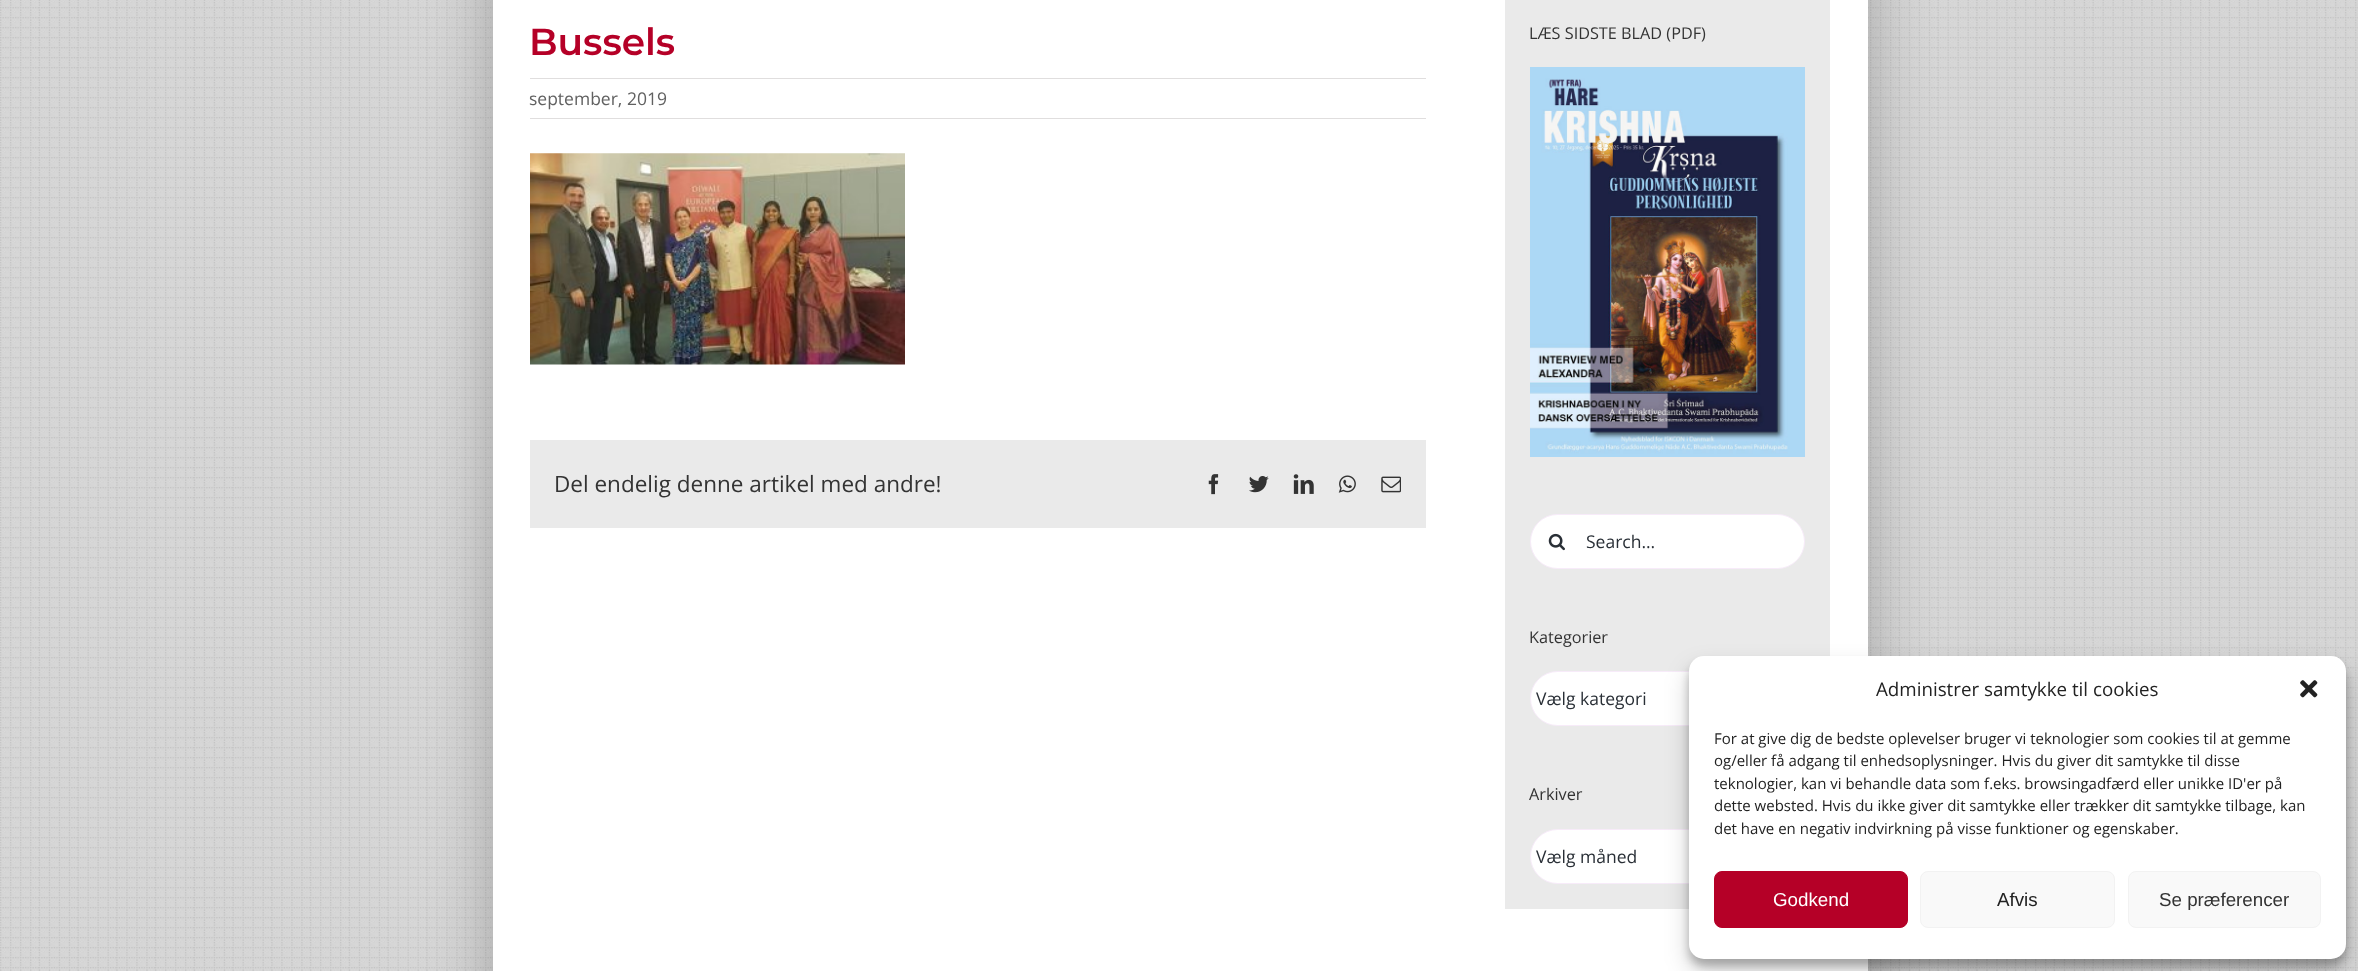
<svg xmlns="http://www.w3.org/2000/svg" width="2358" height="971">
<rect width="100%" height="100%" fill="#fff"/>
<image x="0" y="0" width="2358" height="971" href="media/1.png"/>
<rect x="491" y="-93" width="1378" height="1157" fill="#00000038" filter="blur(31px)"/>
<rect x="493" width="1375" height="971" fill="#fff"/>
<text x="529" y="55" style="font-family:Montserrat;font-size:37.5px;font-weight:600;fill:#b50027">Bussels</text>
<rect x="530" y="78" width="896" height="1" fill="#e0dede"/>
<rect x="530" y="118" width="896" height="1" fill="#e0dede"/>
<text x="529" y="105" style="font-family:Open Sans;font-size:17.5px;fill:#616161">september, 2019</text>
<image x="530" y="153" width="375" height="212" href="media/2.png"/>
<rect x="530" y="440" width="896" height="88" fill="#eaeaea"/>
<text x="554" y="492" style="font-family:Open Sans;font-size:22.5px;fill:#333">Del endelig denne artikel med andre!</text>
<image x="1208" y="474" width="11" height="21" href="media/3.png"/>
<image x="1249" y="476" width="20" height="17" href="media/4.png"/>
<image x="1293" y="474" width="21" height="20" href="media/5.png"/>
<image x="1338" y="475" width="18" height="18" href="media/6.png"/>
<image x="1381" y="476" width="20" height="17" href="media/7.png"/>
<rect x="1505" width="325" height="909" fill="#eaeaea"/>
<text x="1529" y="39" style="font-family:Open Sans;font-size:16.25px;fill:#333">LÆS SIDSTE BLAD (PDF)</text>
<image x="1530" y="67" width="275" height="390" href="media/8.png"/>
<rect x="1530.5" y="514.5" width="274" height="54" rx="27" fill="#fff" stroke="#f7ebf9"/>
<image x="1548" y="533" width="17" height="18" href="media/9.png"/>
<text x="1586" y="548" style="font-family:Open Sans;font-size:17.5px;fill:#292f36">Search...</text>
<text x="1529" y="643" style="font-family:Open Sans;font-size:16.25px;fill:#333">Kategorier</text>
<rect x="1530.5" y="671.5" width="274" height="54" rx="27" fill="#fff" stroke="#f7ebf9"/>
<text x="1536" y="705" style="font-family:Open Sans;font-size:17.5px;fill:#292f36">Vælg kategori</text>
<text x="1529" y="800" style="font-family:Open Sans;font-size:16.25px;fill:#333">Arkiver</text>
<rect x="1530.5" y="829.5" width="274" height="54" rx="27" fill="#fff" stroke="#f7ebf9"/>
<text x="1536" y="863" style="font-family:Open Sans;font-size:17.5px;fill:#292f36">Vælg måned</text>
<rect x="1689" y="664" width="657" height="302" rx="15" fill="#0000003b" filter="blur(4px)"/>
<rect x="1689" y="669" width="657" height="302" rx="15" fill="#00000030" filter="blur(12.5px)"/>
<rect x="1689" y="656" width="657" height="303" rx="15" fill="#fff"/>
<text x="1876" y="696" style="font-family:Open Sans;font-size:18.75px;fill:#222">Administrer samtykke til cookies</text>
<image x="2300" y="680" width="18" height="18" href="media/10.png"/>
<text x="1714" y="744" style="font-family:Open Sans;font-size:15px;fill:#222">For at give dig de bedste oplevelser bruger vi teknologier som cookies til at gemme</text>
<text x="1714" y="766" style="font-family:Open Sans;font-size:15px;fill:#222">og/eller få adgang til enhedsoplysninger. Hvis du giver dit samtykke til disse</text>
<text x="1714" y="789" style="font-family:Open Sans;font-size:15px;fill:#222">teknologier, kan vi behandle data som f.eks. browsingadfærd eller unikke ID'er på</text>
<text x="1714" y="811" style="font-family:Open Sans;font-size:15px;fill:#222">dette websted. Hvis du ikke giver dit samtykke eller trækker dit samtykke tilbage, kan</text>
<text x="1714" y="834" style="font-family:Open Sans;font-size:15px;fill:#222">det have en negativ indvirkning på visse funktioner og egenskaber.</text>
<rect x="1714.5" y="871.5" width="193" height="56" rx="7.5" fill="#b50027" stroke="#b50027"/>
<text x="1773" y="906" style="font-family:Liberation Sans;font-size:18.75px;fill:#fff">Godkend</text>
<rect x="1920.5" y="871.5" width="194" height="56" rx="7.5" fill="#f9f9f9" stroke="#f2f2f2"/>
<text x="1997" y="906" style="font-family:Liberation Sans;font-size:18.75px;fill:#222">Afvis</text>
<rect x="2128.5" y="871.5" width="192" height="56" rx="7.5" fill="#f9f9f9" stroke="#f2f2f2"/>
<text x="2159" y="906" style="font-family:Liberation Sans;font-size:18.75px;fill:#333">Se præferencer</text>
</svg>
